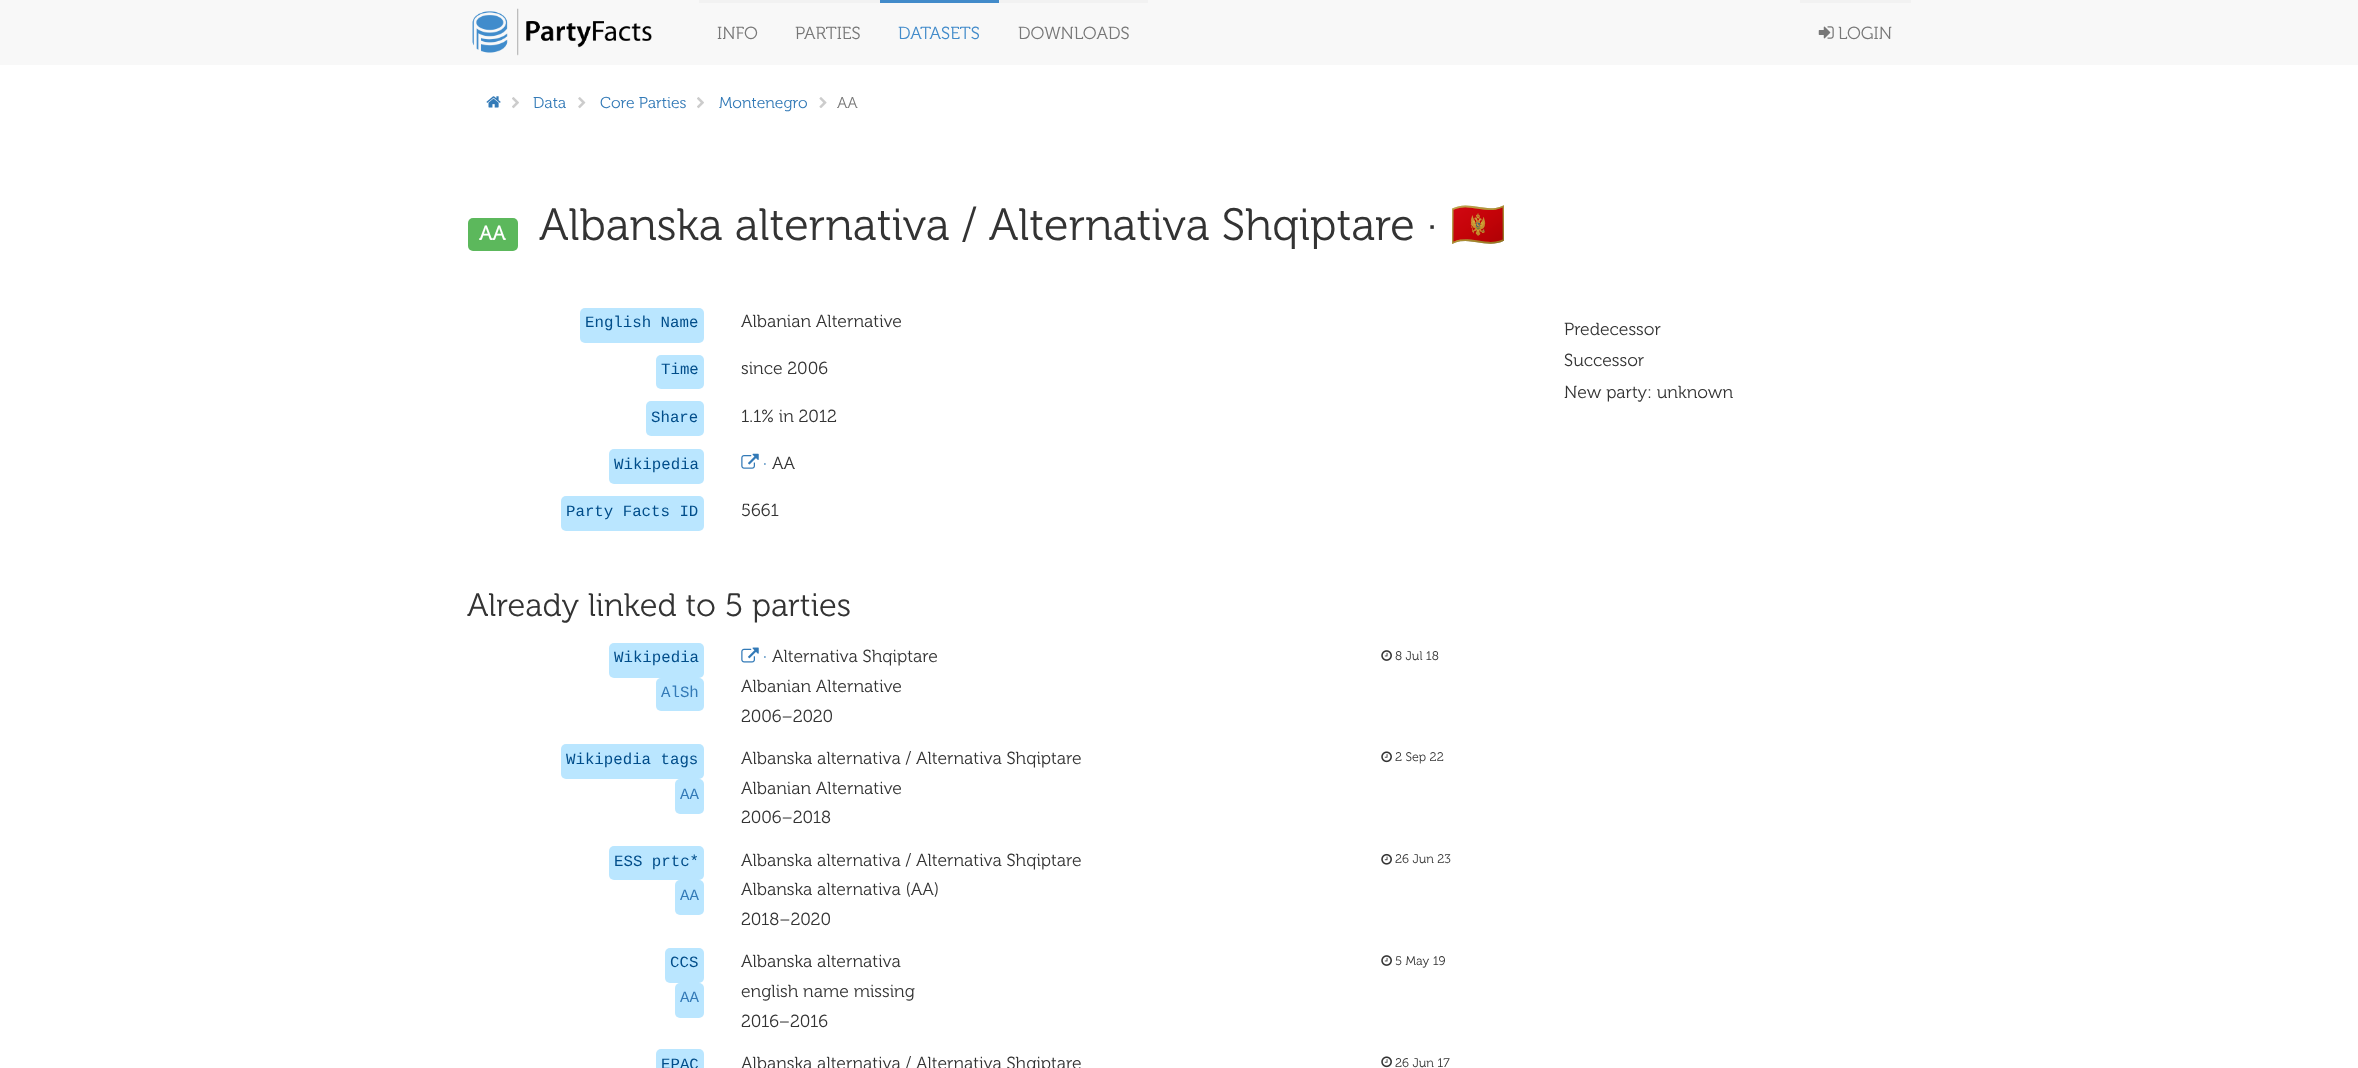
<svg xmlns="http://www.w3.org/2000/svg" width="2358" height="1068">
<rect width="100%" height="100%" fill="#fff"/>
<rect width="2358" height="65" fill="#f8f8f8"/>
<image x="472" y="8" width="180" height="48" href="media/1.png"/>
<rect x="699" width="181" height="3" fill="#f2f2f2"/>
<text x="717" y="39" style="font-family:'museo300';font-size:17.5px;fill:#777">INFO</text>
<text x="795" y="39" style="font-family:'museo300';font-size:17.5px;fill:#777">PARTIES</text>
<rect x="880" width="119" height="3" fill="#428bca"/>
<text x="898" y="39" style="font-family:'museo300';font-size:17.5px;fill:#428bca">DATASETS</text>
<rect x="999" width="149" height="3" fill="#f2f2f2"/>
<text x="1018" y="39" style="font-family:'museo300';font-size:17.5px;fill:#777">DOWNLOADS</text>
<rect x="1800" width="111" height="3" fill="#f2f2f2"/>
<image x="1818" y="26" width="16" height="13" href="media/2.png"/>
<text x="1838" y="39" style="font-family:'museo300';font-size:17.5px;fill:#777">LOGIN</text>
<image x="486" y="96" width="15" height="12" href="media/3.png"/>
<image x="512" y="97" width="7" height="12" href="media/4.png"/>
<text x="533" y="108" style="font-family:'museo300';font-size:15.75px;fill:#337ab7">Data</text>
<image x="578" y="97" width="8" height="12" href="media/5.png"/>
<text x="600" y="108" style="font-family:'museo300';font-size:15.75px;fill:#337ab7">Core Parties</text>
<image x="697" y="97" width="7" height="12" href="media/4.png"/>
<text x="719" y="108" style="font-family:'museo300';font-size:15.75px;fill:#337ab7">Montenegro</text>
<image x="819" y="97" width="8" height="11" href="media/6.png"/>
<text x="837" y="108" style="font-family:'museo300';font-size:15.75px;fill:#777">AA</text>
<rect x="468" y="218" width="50" height="33" rx="5" fill="#5cb85c"/>
<text x="479" y="240" style="font-family:'museo300';font-size:20px;font-weight:bold;fill:#fff">AA</text>
<text x="539" y="240" style="font-family:'museo300';font-size:45px;fill:#333">Albanska alternativa / Alternativa Shqiptare ·</text>
<text x="1450" y="240" style="font-family:Noto Color Emoji;font-size:45px;fill:#333">🇲🇪</text>
<rect x="580" y="308" width="124" height="35" rx="5" fill="#bae6ff"/>
<text x="585" y="327" style="font-family:Liberation Mono;font-size:15.75px;fill:#004d8a">English Name</text>
<text x="741" y="327" style="font-family:'museo300';font-size:17.5px;fill:#333">Albanian Alternative</text>
<rect x="656" y="355" width="48" height="34" rx="5" fill="#bae6ff"/>
<text x="661" y="374" style="font-family:Liberation Mono;font-size:15.75px;fill:#004d8a">Time</text>
<text x="741" y="374" style="font-family:'museo300';font-size:17.5px;fill:#333">since 2006</text>
<rect x="646" y="401" width="58" height="35" rx="5" fill="#bae6ff"/>
<text x="651" y="422" style="font-family:Liberation Mono;font-size:15.75px;fill:#004d8a">Share</text>
<text x="741" y="422" style="font-family:'museo300';font-size:17.5px;fill:#333">1.1% in 2012</text>
<rect x="609" y="449" width="95" height="35" rx="5" fill="#bae6ff"/>
<text x="614" y="469" style="font-family:Liberation Mono;font-size:15.75px;fill:#004d8a">Wikipedia</text>
<image x="741" y="453" width="18" height="16" href="media/7.png"/>
<text x="763" y="469" style="font-family:'museo300';font-size:17.5px;fill:#337ab7">·</text>
<text x="772" y="469" style="font-family:'museo300';font-size:17.5px;fill:#333">AA</text>
<rect x="561" y="496" width="143" height="35" rx="5" fill="#bae6ff"/>
<text x="566" y="516" style="font-family:Liberation Mono;font-size:15.75px;fill:#004d8a">Party Facts ID</text>
<text x="741" y="516" style="font-family:'museo300';font-size:17.5px;fill:#333">5661</text>
<text x="1564" y="335" style="font-family:'museo300';font-size:17.5px;fill:#333">Predecessor</text>
<text x="1564" y="366" style="font-family:'museo300';font-size:17.5px;fill:#333">Successor</text>
<text x="1564" y="398" style="font-family:'museo300';font-size:17.5px;fill:#333">New party: unknown</text>
<text x="467" y="616" style="font-family:'museo300';font-size:32.5px;fill:#333">Already linked to 5 parties</text>
<rect x="609" y="643" width="95" height="35" rx="5" fill="#bae6ff"/>
<text x="614" y="662" style="font-family:Liberation Mono;font-size:15.75px;fill:#004d8a">Wikipedia</text>
<rect x="656" y="678" width="48" height="33" rx="5" fill="#bae6ff"/>
<text x="661" y="697" style="font-family:Liberation Mono;font-size:15.75px;fill:#337ab7">AlSh</text>
<image x="741" y="647" width="18" height="16" href="media/8.png"/>
<text x="763" y="662" style="font-family:'museo300';font-size:17.5px;fill:#337ab7">·</text>
<text x="772" y="662" style="font-family:'museo300';font-size:17.5px;fill:#333">Alternativa Shqiptare</text>
<text x="741" y="692" style="font-family:'museo300';font-size:17.5px;fill:#333">Albanian Alternative</text>
<text x="741" y="722" style="font-family:'museo300';font-size:17.5px;fill:#333">2006–2020</text>
<image x="1381" y="650" width="11" height="11" href="media/9.png"/>
<text x="1395" y="660" style="font-family:'museo300';font-size:12.5px;fill:#333">8 Jul 18</text>
<rect x="561" y="744" width="143" height="35" rx="5" fill="#bae6ff"/>
<text x="566" y="764" style="font-family:Liberation Mono;font-size:15.75px;fill:#004d8a">Wikipedia tags</text>
<rect x="675" y="779" width="29" height="35" rx="5" fill="#bae6ff"/>
<text x="680" y="799" style="font-family:Liberation Mono;font-size:15.75px;fill:#337ab7">AA</text>
<text x="741" y="764" style="font-family:'museo300';font-size:17.5px;fill:#333">Albanska alternativa / Alternativa Shqiptare</text>
<text x="741" y="794" style="font-family:'museo300';font-size:17.5px;fill:#333">Albanian Alternative</text>
<text x="741" y="823" style="font-family:'museo300';font-size:17.5px;fill:#333">2006–2018</text>
<image x="1381" y="751" width="11" height="12" href="media/10.png"/>
<text x="1395" y="761" style="font-family:'museo300';font-size:12.5px;fill:#333">2 Sep 22</text>
<rect x="609" y="846" width="95" height="34" rx="5" fill="#bae6ff"/>
<text x="614" y="866" style="font-family:Liberation Mono;font-size:15.75px;fill:#004d8a">ESS prtc*</text>
<rect x="675" y="880" width="29" height="35" rx="5" fill="#bae6ff"/>
<text x="680" y="900" style="font-family:Liberation Mono;font-size:15.75px;fill:#337ab7">AA</text>
<text x="741" y="866" style="font-family:'museo300';font-size:17.5px;fill:#333">Albanska alternativa / Alternativa Shqiptare</text>
<text x="741" y="895" style="font-family:'museo300';font-size:17.5px;fill:#333">Albanska alternativa (AA)</text>
<text x="741" y="925" style="font-family:'museo300';font-size:17.5px;fill:#333">2018–2020</text>
<image x="1381" y="853" width="11" height="12" href="media/11.png"/>
<text x="1395" y="863" style="font-family:'museo300';font-size:12.5px;fill:#333">26 Jun 23</text>
<rect x="665" y="948" width="39" height="35" rx="5" fill="#bae6ff"/>
<text x="670" y="967" style="font-family:Liberation Mono;font-size:15.75px;fill:#004d8a">CCS</text>
<rect x="675" y="983" width="29" height="35" rx="5" fill="#bae6ff"/>
<text x="680" y="1002" style="font-family:Liberation Mono;font-size:15.75px;fill:#337ab7">AA</text>
<text x="741" y="967" style="font-family:'museo300';font-size:17.5px;fill:#333">Albanska alternativa</text>
<text x="741" y="997" style="font-family:'museo300';font-size:17.5px;fill:#333">english name missing</text>
<text x="741" y="1027" style="font-family:'museo300';font-size:17.5px;fill:#333">2016–2016</text>
<image x="1381" y="955" width="11" height="11" href="media/9.png"/>
<text x="1395" y="965" style="font-family:'museo300';font-size:12.5px;fill:#333">5 May 19</text>
<rect x="656" y="1049" width="48" height="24" rx="5" fill="#bae6ff"/>
<text x="661" y="1069" style="font-family:Liberation Mono;font-size:15.75px;fill:#004d8a">EPAC</text>
<text x="741" y="1069" style="font-family:'museo300';font-size:17.5px;fill:#333">Albanska alternativa / Alternativa Shqiptare</text>
<image x="1381" y="1056" width="11" height="12" href="media/10.png"/>
<text x="1395" y="1067" style="font-family:'museo300';font-size:12.5px;fill:#333">26 Jun 17</text>
</svg>
